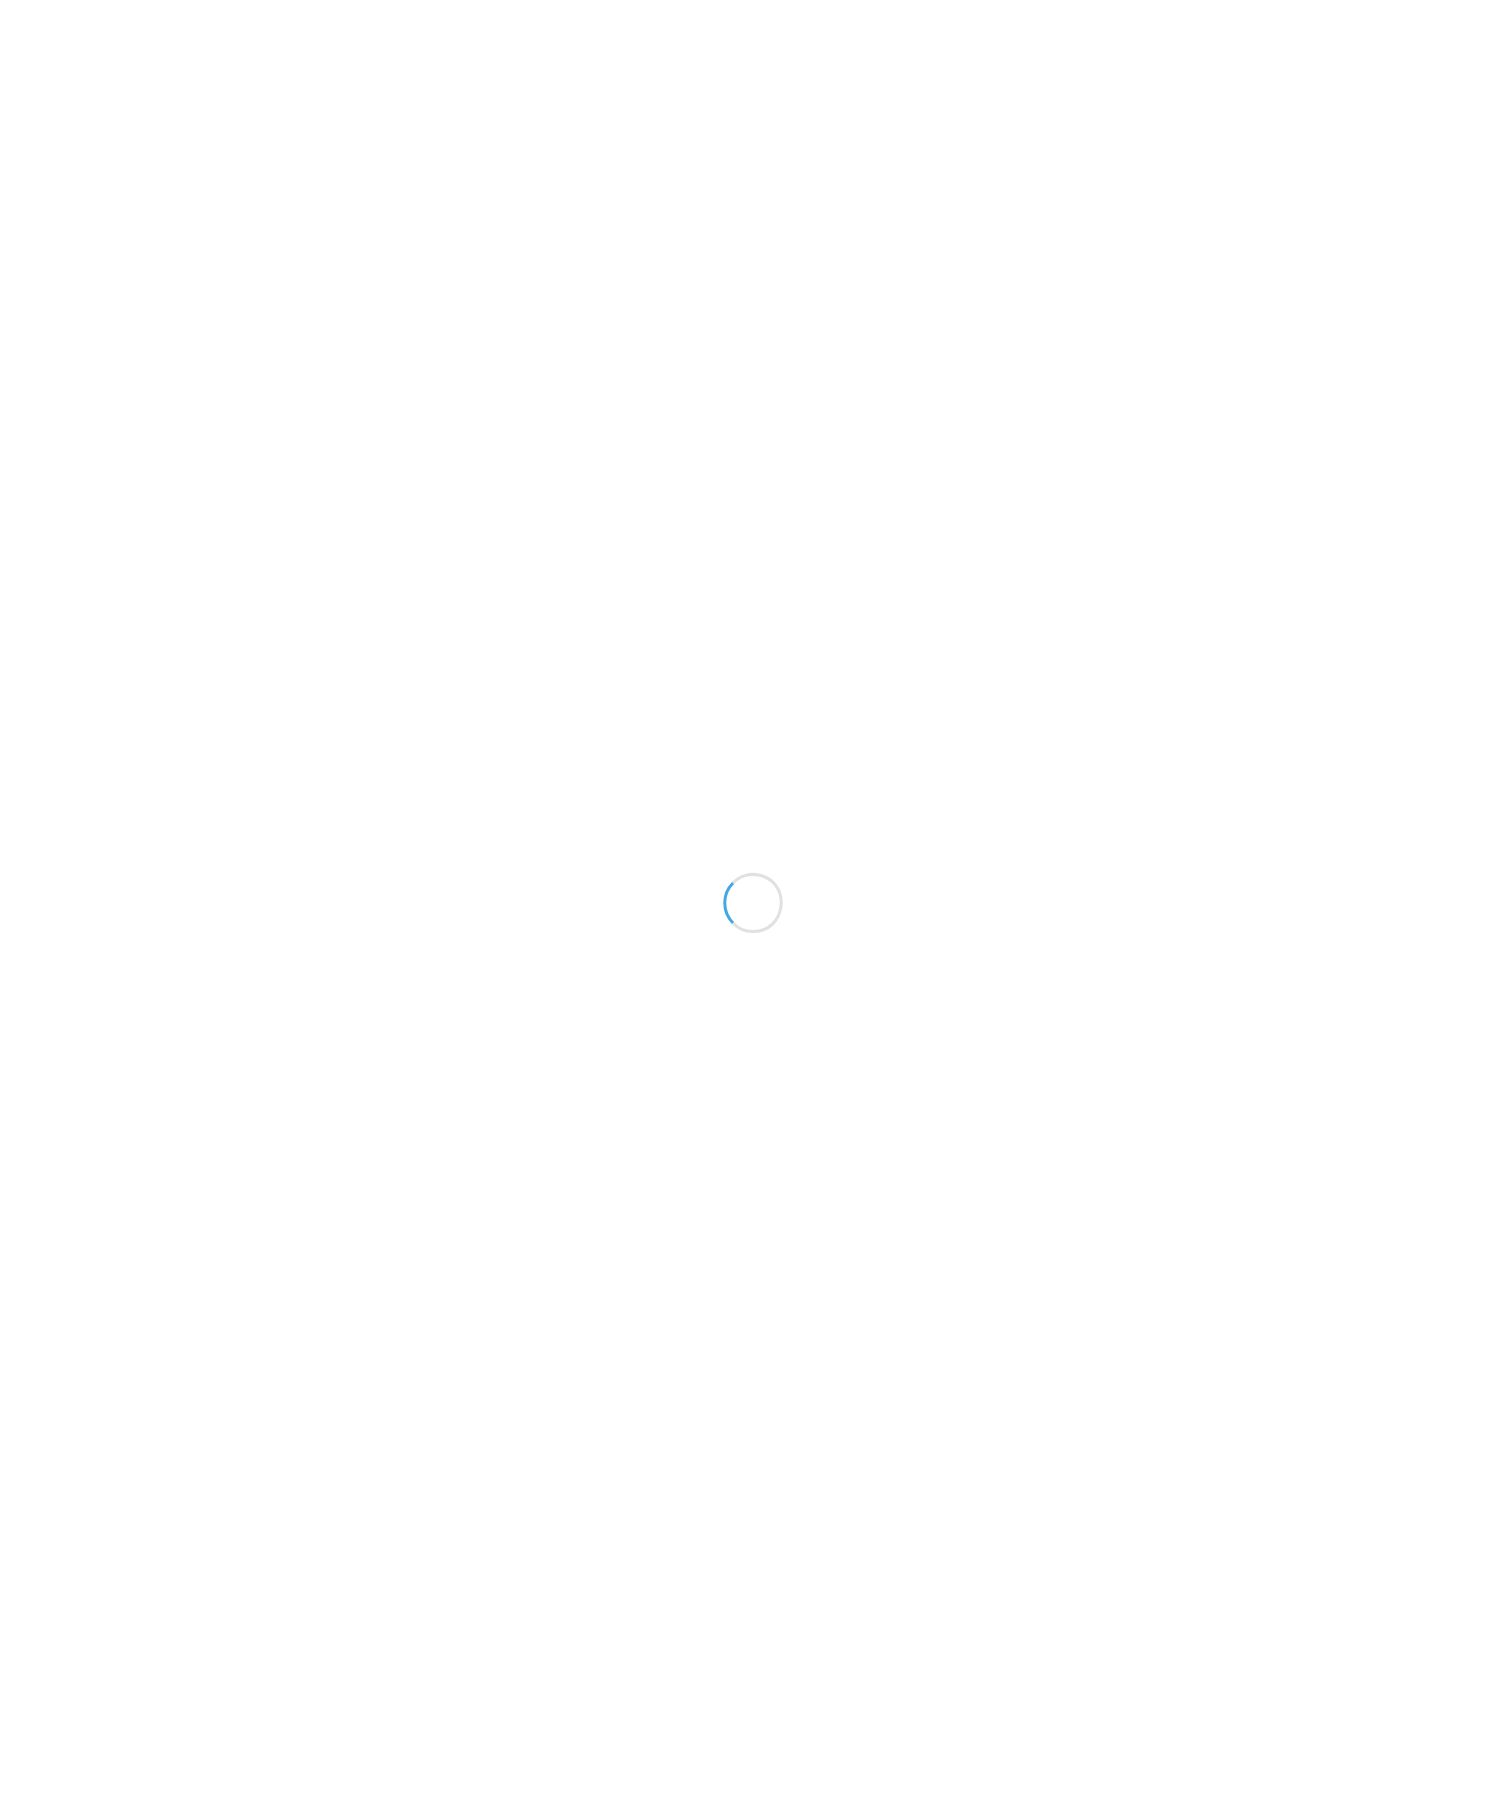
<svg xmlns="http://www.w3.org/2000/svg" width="1506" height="1804">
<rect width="100%" height="100%" fill="#fff"/>
<path d="M733 883c6.5-7 16.5-10 25.5-8c33.5 6.5 28.5 56.5-5.5 56.5c-7.5 0-15-3-20-8.5" fill="none" stroke="#e1e1e1" stroke-width="3"/>
<path d="M733 923c-11-11-11-29 0-40" fill="none" stroke="#40a8e4" stroke-width="3"/>
</svg>
